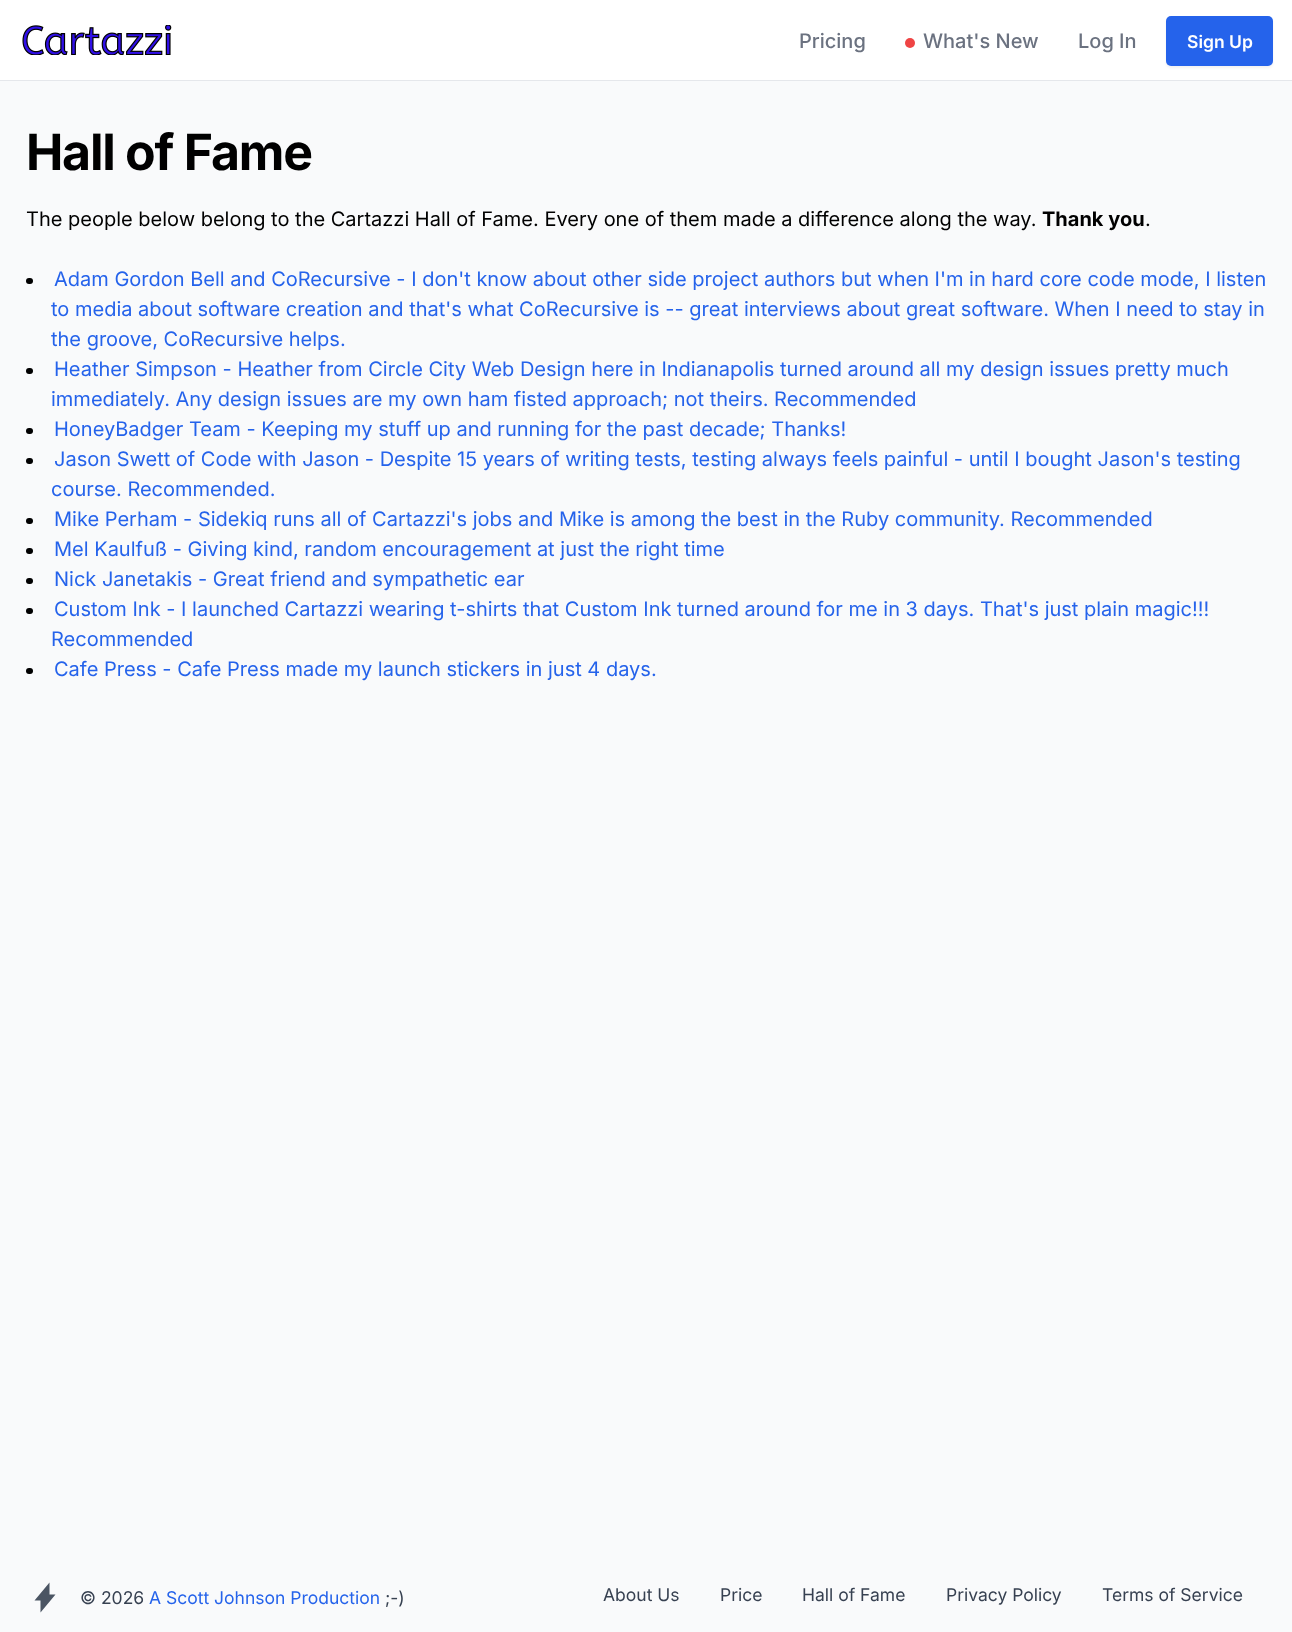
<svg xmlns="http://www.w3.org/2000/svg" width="1292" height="1632">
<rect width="100%" height="100%" fill="#f9fafb"/>
<rect width="1292" height="80" fill="#fff"/>
<rect y="80" width="1292" height="1" fill="#e5e7eb"/>
<image x="22" y="25" width="150" height="30" href="media/1.png"/>
<text x="799" y="48" style="font-family:Inter;font-size:20px;font-weight:500;fill:#6b7280">Pricing</text>
<circle cx="910" cy="43" r="5" fill="#ef4444"/>
<text x="923" y="48" style="font-family:Inter;font-size:20px;font-weight:500;fill:#6b7280">What's New</text>
<text x="1078" y="48" style="font-family:Inter;font-size:20px;font-weight:500;fill:#6b7280">Log In</text>
<rect x="1166" y="18" width="107" height="50" rx="5" fill="#0000000d" filter="blur(1px)"/>
<rect x="1166" y="16" width="107" height="50" rx="5" fill="#2563eb"/>
<text x="1187" y="48" style="font-family:Inter;font-size:17.5px;font-weight:600;fill:#fff">Sign Up</text>
<text x="26" y="170" style="font-family:Inter;font-size:50px;font-weight:bold;letter-spacing:-1.25px;fill:#000">Hall of Fame</text>
<text x="26" y="226" style="font-family:Inter;font-size:20px;fill:#000">The people below belong to the Cartazzi Hall of Fame. Every one of them made a difference along the way.</text>
<text x="1042" y="226" style="font-family:Inter;font-size:20px;font-weight:bold;fill:#000">Thank you</text>
<text x="1145" y="226" style="font-family:Inter;font-size:20px;fill:#000">.</text>
<rect x="26" y="278" width="7" height="6" rx="3" fill="#000"/>
<text x="54" y="286" style="font-family:Inter;font-size:20px;fill:#2563eb">Adam Gordon Bell and CoRecursive - I don't know about other side project authors but when I'm in hard core code mode, I listen</text>
<text x="51" y="316" style="font-family:Inter;font-size:20px;fill:#2563eb">to media about software creation and that's what CoRecursive is -- great interviews about great software. When I need to stay in</text>
<text x="51" y="346" style="font-family:Inter;font-size:20px;fill:#2563eb">the groove, CoRecursive helps.</text>
<rect x="26" y="368" width="7" height="6" rx="3" fill="#000"/>
<text x="54" y="376" style="font-family:Inter;font-size:20px;fill:#2563eb">Heather Simpson - Heather from Circle City Web Design here in Indianapolis turned around all my design issues pretty much</text>
<text x="51" y="406" style="font-family:Inter;font-size:20px;fill:#2563eb">immediately. Any design issues are my own ham fisted approach; not theirs. Recommended</text>
<rect x="26" y="428" width="7" height="6" rx="3" fill="#000"/>
<text x="54" y="436" style="font-family:Inter;font-size:20px;fill:#2563eb">HoneyBadger Team - Keeping my stuff up and running for the past decade; Thanks!</text>
<rect x="26" y="458" width="7" height="6" rx="3" fill="#000"/>
<text x="54" y="466" style="font-family:Inter;font-size:20px;fill:#2563eb">Jason Swett of Code with Jason - Despite 15 years of writing tests, testing always feels painful - until I bought Jason's testing</text>
<text x="51" y="496" style="font-family:Inter;font-size:20px;fill:#2563eb">course. Recommended.</text>
<rect x="26" y="518" width="7" height="6" rx="3" fill="#000"/>
<text x="54" y="526" style="font-family:Inter;font-size:20px;fill:#2563eb">Mike Perham - Sidekiq runs all of Cartazzi's jobs and Mike is among the best in the Ruby community. Recommended</text>
<rect x="26" y="548" width="7" height="6" rx="3" fill="#000"/>
<text x="54" y="556" style="font-family:Inter;font-size:20px;fill:#2563eb">Mel Kaulfuß - Giving kind, random encouragement at just the right time</text>
<rect x="26" y="578" width="7" height="6" rx="3" fill="#000"/>
<text x="54" y="586" style="font-family:Inter;font-size:20px;fill:#2563eb">Nick Janetakis - Great friend and sympathetic ear</text>
<rect x="26" y="608" width="7" height="6" rx="3" fill="#000"/>
<text x="54" y="616" style="font-family:Inter;font-size:20px;fill:#2563eb">Custom Ink - I launched Cartazzi wearing t-shirts that Custom Ink turned around for me in 3 days. That's just plain magic!!!</text>
<text x="51" y="646" style="font-family:Inter;font-size:20px;fill:#2563eb">Recommended</text>
<rect x="26" y="668" width="7" height="6" rx="3" fill="#000"/>
<text x="54" y="676" style="font-family:Inter;font-size:20px;fill:#2563eb">Cafe Press - Cafe Press made my launch stickers in just 4 days.</text>
<path d="M49.5 1594.5v-12l-15 18h6v12l15-18z" fill="#4b5563"/>
<text x="80" y="1604" style="font-family:Inter;font-size:17.5px;fill:#374151">© 2026</text>
<text x="149" y="1604" style="font-family:Inter;font-size:17.5px;fill:#2563eb">A Scott Johnson Production</text>
<text x="385" y="1604" style="font-family:Inter;font-size:17.5px;fill:#374151">;-)</text>
<text x="603" y="1601" style="font-family:Inter;font-size:17.5px;fill:#374151">About Us</text>
<text x="720" y="1601" style="font-family:Inter;font-size:17.5px;fill:#374151">Price</text>
<text x="802" y="1601" style="font-family:Inter;font-size:17.5px;fill:#374151">Hall of Fame</text>
<text x="946" y="1601" style="font-family:Inter;font-size:17.5px;fill:#374151">Privacy Policy</text>
<text x="1102" y="1601" style="font-family:Inter;font-size:17.5px;fill:#374151">Terms of Service</text>
</svg>
